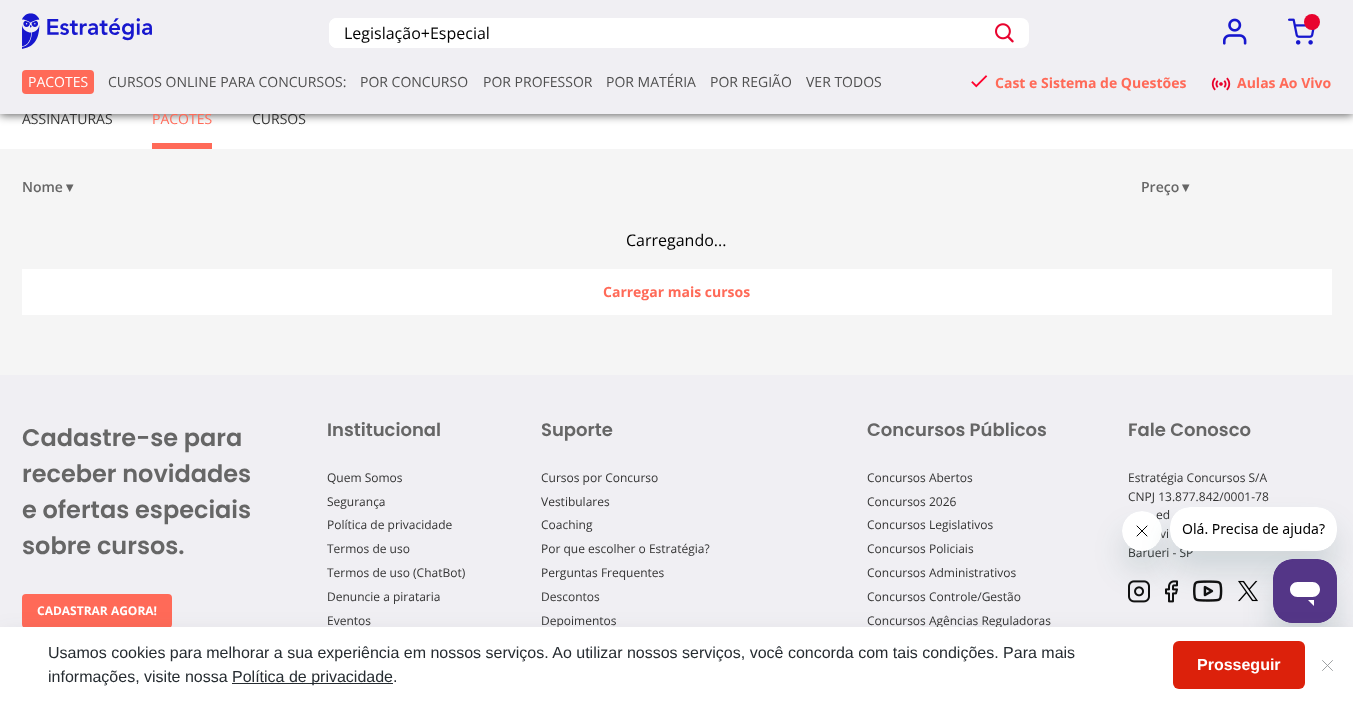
<svg xmlns="http://www.w3.org/2000/svg" width="1353" height="703">
<rect width="100%" height="100%" fill="#fff"/>
<rect y="1" width="1353" height="114" fill="#000000a6" filter="blur(5px)"/>
<text x="22" y="124" style="font-family:Open Sans;font-size:14px;fill:#333">ASSINATURAS</text>
<text x="152" y="124" style="font-family:Open Sans;font-size:14px;fill:#ff6a58">PACOTES</text>
<text x="252" y="124" style="font-family:Open Sans;font-size:14px;fill:#333">CURSOS</text>
<rect width="1353" height="114" fill="#f0eff3"/>
<image x="22" y="13" width="130" height="36" href="media/1.png"/>
<rect x="329" y="18" width="700" height="30" rx="8" fill="#fff"/>
<path d="M337 18h642v30h-642c-4.5 0-8-3.5-8-8v-14c0-4.5 3.5-8 8-8z" fill="#fff"/>
<text x="344" y="39" style="font-family:Open Sans;font-size:16px;fill:#000">Legislação+Especial</text>
<image x="995" y="23" width="19" height="20" href="media/2.png"/>
<image x="1223" y="18" width="24" height="27" href="media/3.png"/>
<image x="1288" y="18" width="27" height="27" href="media/4.png"/>
<circle cx="1312" cy="22" r="8" fill="#e8032e"/>
<rect x="22" y="70" width="72" height="24" rx="4" fill="#ff6a58"/>
<text x="28" y="87" style="font-family:Open Sans;font-size:14px;fill:#fff">PACOTES</text>
<text x="108" y="87" style="font-family:Open Sans;font-size:14px;fill:#4f4f4f">CURSOS ONLINE PARA CONCURSOS:</text>
<text x="360" y="87" style="font-family:Open Sans;font-size:14px;fill:#4f4f4f">POR CONCURSO</text>
<text x="483" y="87" style="font-family:Open Sans;font-size:14px;fill:#4f4f4f">POR PROFESSOR</text>
<text x="606" y="87" style="font-family:Open Sans;font-size:14px;fill:#4f4f4f">POR MATÉRIA</text>
<text x="710" y="87" style="font-family:Open Sans;font-size:14px;fill:#4f4f4f">POR REGIÃO</text>
<text x="806" y="87" style="font-family:Open Sans;font-size:14px;fill:#4f4f4f">VER TODOS</text>
<image x="971" y="75" width="17" height="13" href="media/5.png"/>
<text x="995" y="88" style="font-family:Open Sans;font-size:14px;font-weight:bold;fill:#ff6a58">Cast e Sistema de Questões</text>
<image x="1211" y="77" width="20" height="14" href="media/6.png"/>
<text x="1237" y="88" style="font-family:Open Sans;font-size:14px;font-weight:bold;fill:#ff6a58">Aulas Ao Vivo</text>
<rect x="152" y="143" width="60" height="6" fill="#ff6a58"/>
<rect y="149" width="1353" height="226" fill="#f5f5f5"/>
<text x="22" y="192" style="font-family:Open Sans;font-size:14px;font-weight:600;fill:#666">Nome</text>
<text x="66" y="192" style="font-family:DejaVu Sans;font-size:14px;font-weight:bold;fill:#666">▾</text>
<text x="1141" y="192" style="font-family:Open Sans;font-size:14px;font-weight:600;fill:#666">Preço</text>
<text x="1182" y="192" style="font-family:DejaVu Sans;font-size:14px;font-weight:bold;fill:#666">▾</text>
<text x="626" y="246" style="font-family:Open Sans;font-size:16px;fill:#000">Carregando...</text>
<rect x="22" y="269" width="1310" height="46" fill="#fff"/>
<text x="603" y="297" style="font-family:Open Sans;font-size:14px;font-weight:bold;fill:#ff6a58">Carregar mais cursos</text>
<rect y="375" width="1353" height="252" fill="#f0eff3"/>
<text x="22" y="446" style="font-family:Poppins;font-size:24px;font-weight:600;fill:#666">Cadastre-se para</text>
<text x="22" y="482" style="font-family:Poppins;font-size:24px;font-weight:600;fill:#666">receber novidades</text>
<text x="22" y="518" style="font-family:Poppins;font-size:24px;font-weight:600;fill:#666">e ofertas especiais</text>
<text x="22" y="554" style="font-family:Poppins;font-size:24px;font-weight:600;fill:#666">sobre cursos.</text>
<rect x="22" y="594" width="150" height="34" rx="4" fill="#ff6a58"/>
<text x="37" y="615" style="font-family:Open Sans;font-size:12px;font-weight:bold;fill:#fff">CADASTRAR AGORA!</text>
<text x="327" y="436" style="font-family:Poppins;font-size:18px;font-weight:600;fill:#666">Institucional</text>
<text x="327" y="482" style="font-family:Open Sans;font-size:12px;fill:#333">Quem Somos</text>
<text x="327" y="506" style="font-family:Open Sans;font-size:12px;fill:#333">Segurança</text>
<text x="327" y="529" style="font-family:Open Sans;font-size:12px;fill:#333">Política de privacidade</text>
<text x="327" y="553" style="font-family:Open Sans;font-size:12px;fill:#333">Termos de uso</text>
<text x="327" y="577" style="font-family:Open Sans;font-size:12px;fill:#333">Termos de uso (ChatBot)</text>
<text x="327" y="601" style="font-family:Open Sans;font-size:12px;fill:#333">Denuncie a pirataria</text>
<text x="327" y="625" style="font-family:Open Sans;font-size:12px;fill:#333">Eventos</text>
<text x="541" y="436" style="font-family:Poppins;font-size:18px;font-weight:600;fill:#666">Suporte</text>
<text x="541" y="482" style="font-family:Open Sans;font-size:12px;fill:#333">Cursos por Concurso</text>
<text x="541" y="506" style="font-family:Open Sans;font-size:12px;fill:#333">Vestibulares</text>
<text x="541" y="529" style="font-family:Open Sans;font-size:12px;fill:#333">Coaching</text>
<text x="541" y="553" style="font-family:Open Sans;font-size:12px;fill:#333">Por que escolher o Estratégia?</text>
<text x="541" y="577" style="font-family:Open Sans;font-size:12px;fill:#333">Perguntas Frequentes</text>
<text x="541" y="601" style="font-family:Open Sans;font-size:12px;fill:#333">Descontos</text>
<text x="541" y="625" style="font-family:Open Sans;font-size:12px;fill:#333">Depoimentos</text>
<text x="867" y="436" style="font-family:Poppins;font-size:18px;font-weight:600;fill:#666">Concursos Públicos</text>
<text x="867" y="482" style="font-family:Open Sans;font-size:12px;fill:#333">Concursos Abertos</text>
<text x="867" y="506" style="font-family:Open Sans;font-size:12px;fill:#333">Concursos 2026</text>
<text x="867" y="529" style="font-family:Open Sans;font-size:12px;fill:#333">Concursos Legislativos</text>
<text x="867" y="553" style="font-family:Open Sans;font-size:12px;fill:#333">Concursos Policiais</text>
<text x="867" y="577" style="font-family:Open Sans;font-size:12px;fill:#333">Concursos Administrativos</text>
<text x="867" y="601" style="font-family:Open Sans;font-size:12px;fill:#333">Concursos Controle/Gestão</text>
<text x="867" y="625" style="font-family:Open Sans;font-size:12px;fill:#333">Concursos Agências Reguladoras</text>
<text x="1128" y="436" style="font-family:Poppins;font-size:18px;font-weight:600;fill:#666">Fale Conosco</text>
<text x="1128" y="482" style="font-family:Open Sans;font-size:12px;fill:#333">Estratégia Concursos S/A</text>
<text x="1128" y="501" style="font-family:Open Sans;font-size:12px;fill:#333">CNPJ 13.877.842/0001-78</text>
<text x="1156" y="519" style="font-family:Open Sans;font-size:12px;fill:#333">ed</text>
<text x="1160" y="538" style="font-family:Open Sans;font-size:12px;fill:#333">vi</text>
<text x="1128" y="557" style="font-family:Open Sans;font-size:12px;fill:#333">Barueri - SP</text>
<image x="1128" y="580" width="22" height="23" href="media/7.png"/>
<image x="1165" y="580" width="13" height="23" href="media/8.png"/>
<image x="1193" y="580" width="30" height="22" href="media/9.png"/>
<image x="1238" y="580" width="20" height="22" href="media/10.png"/>
<rect x="1122" y="531" width="40" height="40" rx="20" fill="#17494d26" filter="blur(15px)"/>
<image x="1122" y="511" width="40" height="40" href="media/12.png"/>
<rect x="1170" y="527" width="167" height="44" rx="20" fill="#17494d26" filter="blur(15px)"/>
<image x="1170" y="507" width="167" height="44" href="media/11.png"/>
<rect x="1273" y="579" width="64" height="64" rx="20" fill="#17494d26" filter="blur(15px)"/>
<image x="1273" y="559" width="64" height="64" href="media/13.png"/>
<rect y="637" width="1353" height="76" fill="#363d4d26" filter="blur(12px)"/>
<rect y="627" width="1353" height="76" fill="#fff"/>
<text x="48" y="658" style="font-family:Liberation Sans;font-size:16px;fill:#262c31">Usamos cookies para melhorar a sua experiência em nossos serviços. Ao utilizar nossos serviços, você concorda com tais condições. Para mais</text>
<text x="48" y="682" style="font-family:Liberation Sans;font-size:16px;fill:#262c31">informações, visite nossa</text>
<rect x="232" y="683" width="161" height="1" fill="#262c31"/>
<text x="232" y="682" style="font-family:Liberation Sans;font-size:16px;fill:#262c31">Política de privacidade.</text>
<rect x="1173" y="641" width="132" height="48" rx="6" fill="#dc210b"/>
<text x="1197" y="670" style="font-family:Liberation Sans;font-size:16px;font-weight:bold;fill:#fff">Prosseguir</text>
<path d="M1322.5 660.5l10 10m0-10l-10 10" fill="none" stroke="#939698" stroke-width="0.9" stroke-linecap="round" stroke-linejoin="round"/>
</svg>
